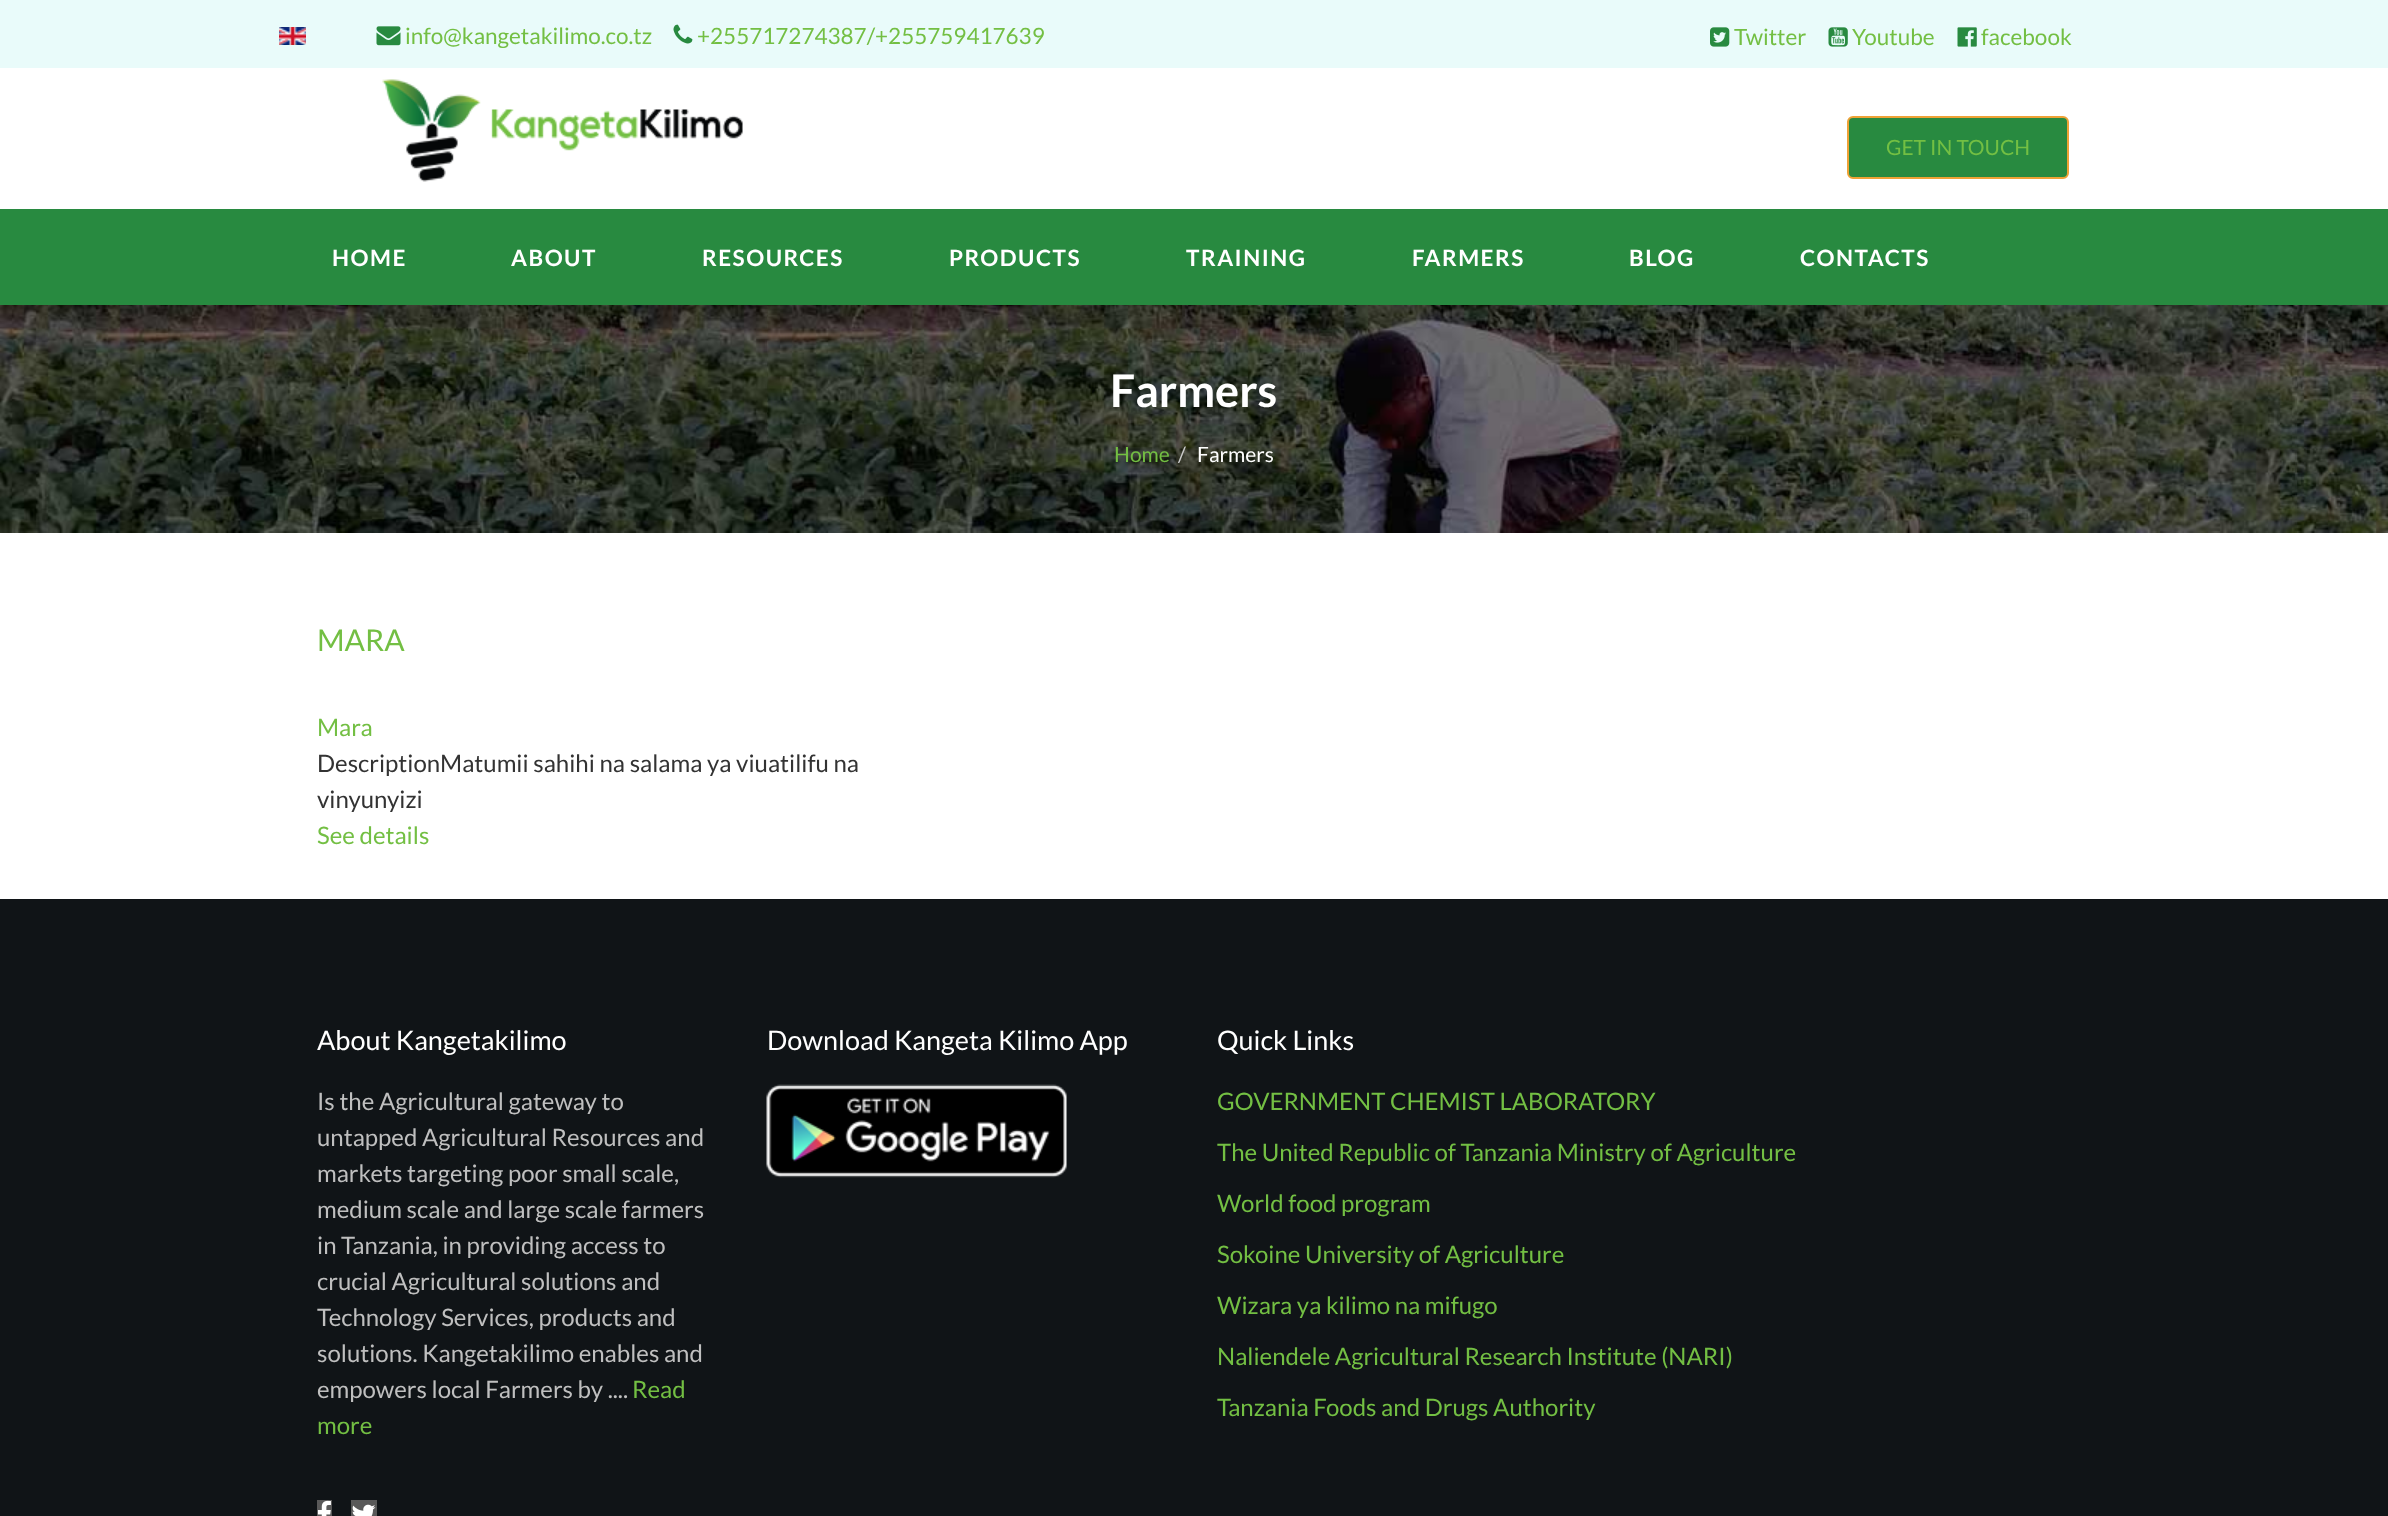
<svg xmlns="http://www.w3.org/2000/svg" width="2388" height="1516">
<rect width="100%" height="100%" fill="#fff"/>
<rect width="2388" height="68" fill="#e9fbfa"/>
<image x="279" y="27" width="27" height="18" href="media/1.png"/>
<image x="376" y="26" width="25" height="20" href="media/2.png"/>
<text x="405" y="44" style="font-family:Lato;font-size:22.5px;fill:#73bf43">info@kangetakilimo.co.tz</text>
<image x="673" y="24" width="20" height="20" href="media/3.png"/>
<text x="697" y="44" style="font-family:Lato;font-size:22.5px;fill:#73bf43">+255717274387/+255759417639</text>
<image x="1710" y="27" width="20" height="20" href="media/4.png"/>
<text x="1734" y="45" style="font-family:Lato;font-size:22.5px;fill:#73bf43">Twitter</text>
<image x="1828" y="27" width="20" height="20" href="media/5.png"/>
<text x="1852" y="45" style="font-family:Lato;font-size:22.5px;fill:#73bf43">Youtube</text>
<image x="1957" y="27" width="20" height="20" href="media/6.png"/>
<text x="1981" y="45" style="font-family:Lato;font-size:22.5px;fill:#73bf43">facebook</text>
<image x="382" y="79" width="361" height="103" href="media/7.png"/>
<rect x="1848" y="117" width="220" height="61" rx="5" fill="#288a40" stroke="#eea236" stroke-width="2"/>
<text x="1886" y="155" style="font-family:Lato;font-size:21px;fill:#73bf43">GET IN TOUCH</text>
<rect y="209" width="2388" height="96" fill="#288a40"/>
<text x="332" y="266" style="font-family:Lato;font-size:22.5px;font-weight:bold;letter-spacing:1.5px;fill:#fff">HOME</text>
<text x="511" y="266" style="font-family:Lato;font-size:22.5px;font-weight:bold;letter-spacing:1.5px;fill:#fff">ABOUT</text>
<text x="702" y="266" style="font-family:Lato;font-size:22.5px;font-weight:bold;letter-spacing:1.5px;fill:#fff">RESOURCES</text>
<text x="949" y="266" style="font-family:Lato;font-size:22.5px;font-weight:bold;letter-spacing:1.5px;fill:#fff">PRODUCTS</text>
<text x="1186" y="266" style="font-family:Lato;font-size:22.5px;font-weight:bold;letter-spacing:1.5px;fill:#fff">TRAINING</text>
<text x="1412" y="266" style="font-family:Lato;font-size:22.5px;font-weight:bold;letter-spacing:1.5px;fill:#fff">FARMERS</text>
<text x="1629" y="266" style="font-family:Lato;font-size:22.5px;font-weight:bold;letter-spacing:1.5px;fill:#fff">BLOG</text>
<text x="1800" y="266" style="font-family:Lato;font-size:22.5px;font-weight:bold;letter-spacing:1.5px;fill:#fff">CONTACTS</text>
<image x="0" y="305" width="2388" height="228" href="media/8.png"/>
<text x="1110" y="407" style="font-family:Lato;font-size:45px;font-weight:bold;fill:#fff">Farmers</text>
<text x="1114" y="462" style="font-family:Lato;font-size:21px;fill:#73bf43">Home</text>
<text x="1178" y="462" style="font-family:Lato;font-size:21px;fill:#ccc">/</text>
<text x="1197" y="462" style="font-family:Lato;font-size:21px;fill:#fff">Farmers</text>
<text x="317" y="651" style="font-family:Lato;font-size:30px;fill:#73bf43">MARA</text>
<text x="317" y="736" style="font-family:Lato;font-size:24px;fill:#73bf43">Mara</text>
<text x="317" y="772" style="font-family:Lato;font-size:24px;fill:#333">DescriptionMatumii sahihi na salama ya viuatilifu na</text>
<text x="317" y="808" style="font-family:Lato;font-size:24px;fill:#333">vinyunyizi</text>
<text x="317" y="844" style="font-family:Lato;font-size:24px;fill:#73bf43">See details</text>
<rect y="899" width="2388" height="617" fill="#101417"/>
<text x="317" y="1050" style="font-family:Lato;font-size:27px;fill:#fff">About Kangetakilimo</text>
<text x="317" y="1110" style="font-family:Lato;font-size:24px;fill:#bfbfbf">Is the Agricultural gateway to</text>
<text x="317" y="1146" style="font-family:Lato;font-size:24px;fill:#bfbfbf">untapped Agricultural Resources and</text>
<text x="317" y="1182" style="font-family:Lato;font-size:24px;fill:#bfbfbf">markets targeting poor small scale,</text>
<text x="317" y="1218" style="font-family:Lato;font-size:24px;fill:#bfbfbf">medium scale and large scale farmers</text>
<text x="317" y="1254" style="font-family:Lato;font-size:24px;fill:#bfbfbf">in Tanzania, in providing access to</text>
<text x="317" y="1290" style="font-family:Lato;font-size:24px;fill:#bfbfbf">crucial Agricultural solutions and</text>
<text x="317" y="1326" style="font-family:Lato;font-size:24px;fill:#bfbfbf">Technology Services, products and</text>
<text x="317" y="1362" style="font-family:Lato;font-size:24px;fill:#bfbfbf">solutions. Kangetakilimo enables and</text>
<text x="317" y="1398" style="font-family:Lato;font-size:24px;fill:#bfbfbf">empowers local Farmers by ....</text>
<text x="632" y="1398" style="font-family:Lato;font-size:24px;fill:#73bf43">Read</text>
<text x="317" y="1434" style="font-family:Lato;font-size:24px;fill:#73bf43">more</text>
<rect x="317" y="1500" width="15" height="16" fill="#595959"/>
<image x="317" y="1500" width="14" height="16" href="media/9.png"/>
<rect x="351" y="1500" width="26" height="16" fill="#595959"/>
<image x="352" y="1504" width="24" height="12" href="media/10.png"/>
<text x="767" y="1050" style="font-family:Lato;font-size:27px;fill:#fff">Download Kangeta Kilimo App</text>
<image x="766" y="1084" width="301" height="94" href="media/11.png"/>
<text x="1217" y="1050" style="font-family:Lato;font-size:27px;fill:#fff">Quick Links</text>
<text x="1217" y="1110" style="font-family:Lato;font-size:24px;fill:#73bf43">GOVERNMENT CHEMIST LABORATORY</text>
<text x="1217" y="1161" style="font-family:Lato;font-size:24px;fill:#73bf43">The United Republic of Tanzania Ministry of Agriculture</text>
<text x="1217" y="1212" style="font-family:Lato;font-size:24px;fill:#73bf43">World food program</text>
<text x="1217" y="1263" style="font-family:Lato;font-size:24px;fill:#73bf43">Sokoine University of Agriculture</text>
<text x="1217" y="1314" style="font-family:Lato;font-size:24px;fill:#73bf43">Wizara ya kilimo na mifugo</text>
<text x="1217" y="1365" style="font-family:Lato;font-size:24px;fill:#73bf43">Naliendele Agricultural Research Institute (NARI)</text>
<text x="1217" y="1416" style="font-family:Lato;font-size:24px;fill:#73bf43">Tanzania Foods and Drugs Authority</text>
</svg>
